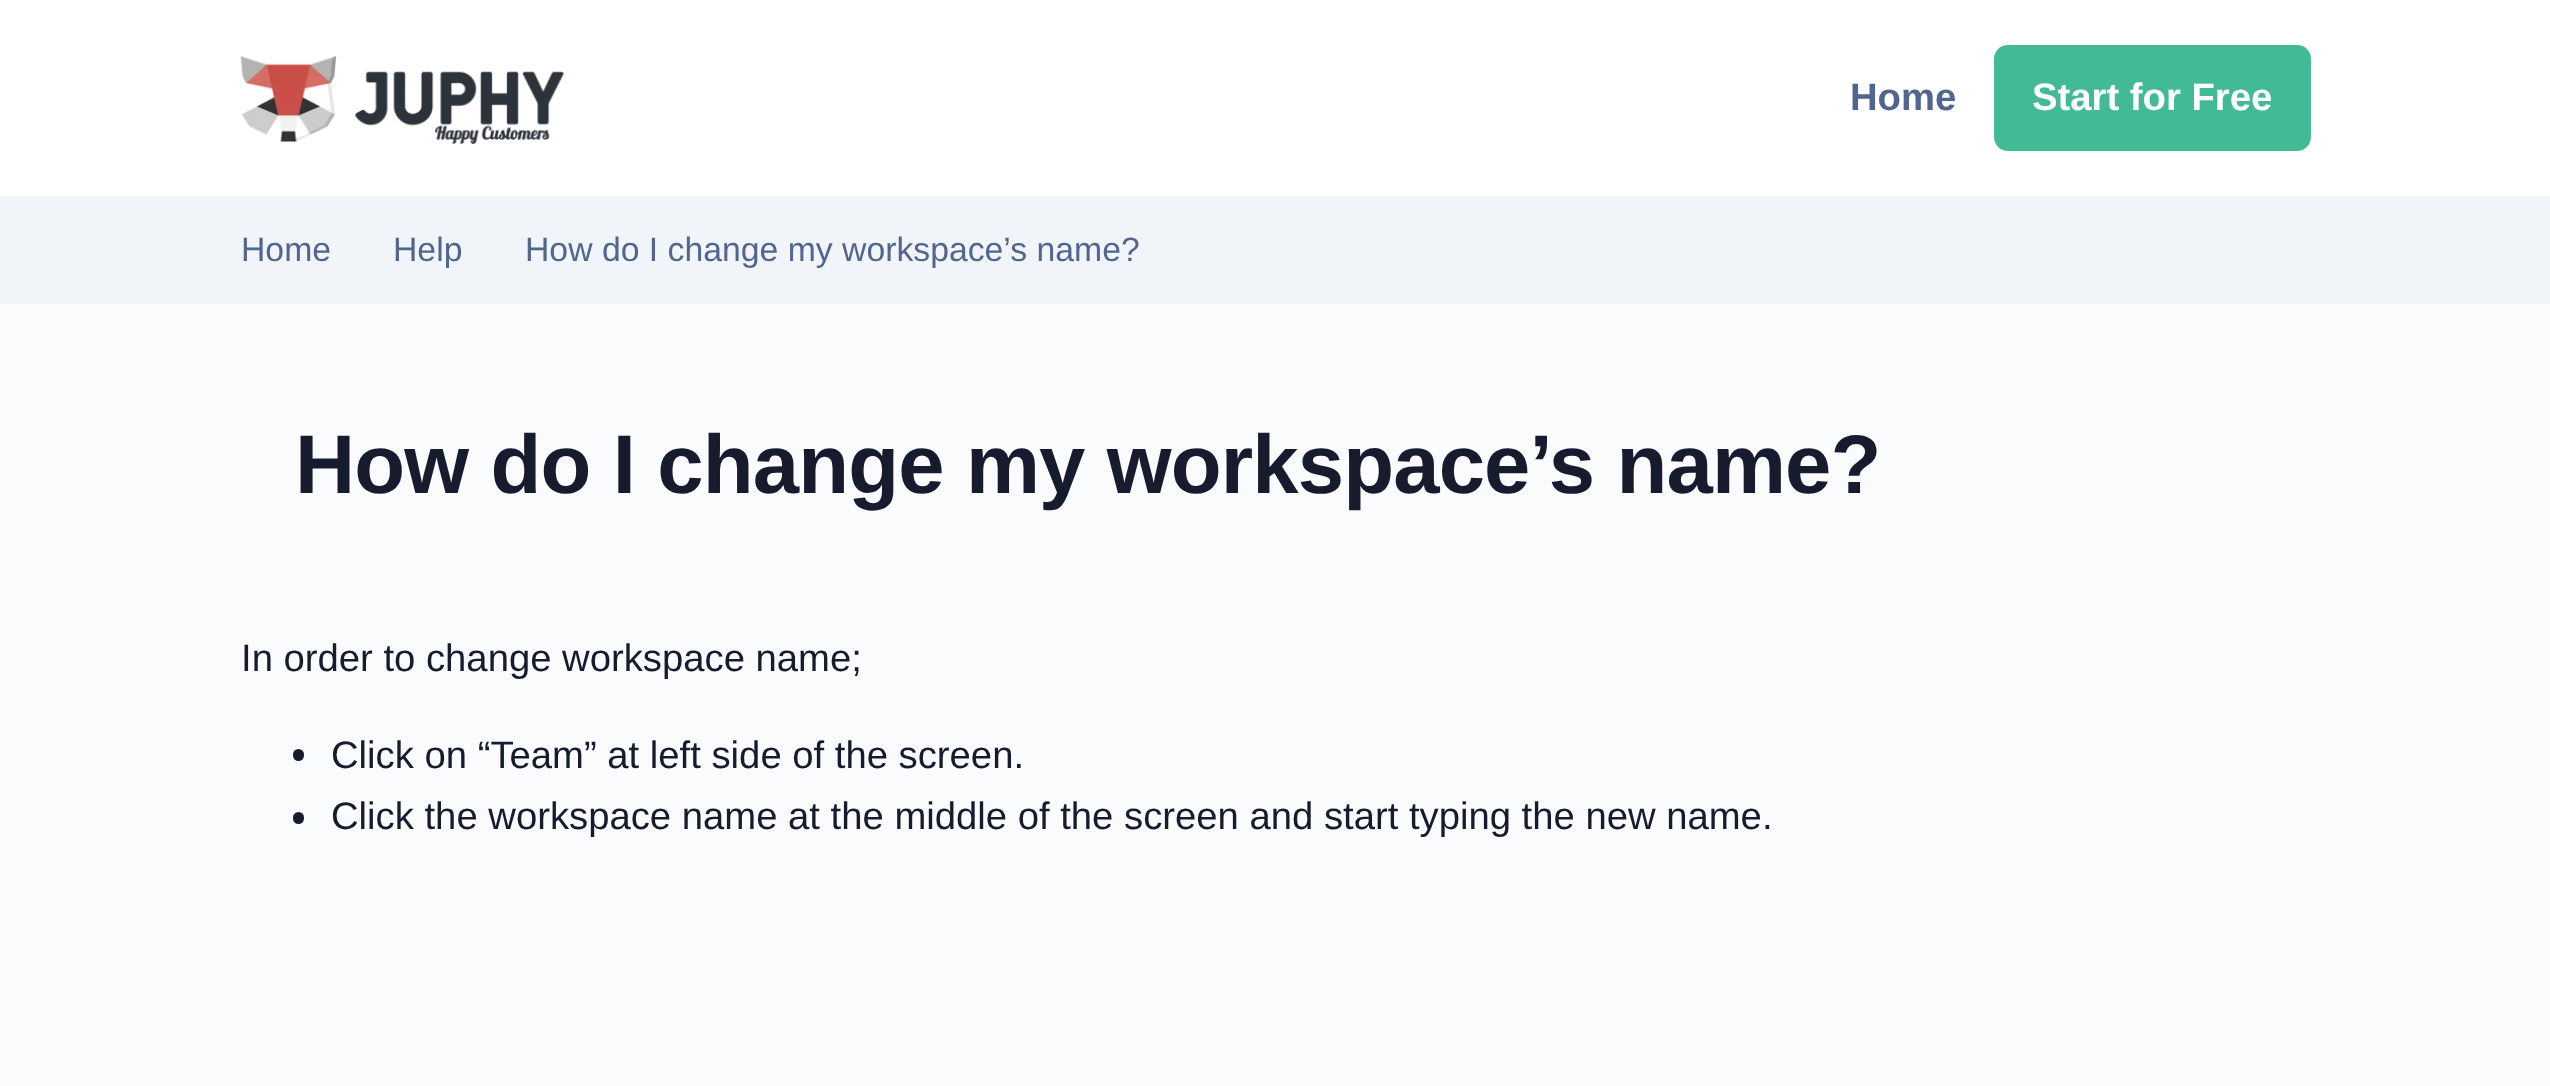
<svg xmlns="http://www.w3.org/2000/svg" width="2550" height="1086">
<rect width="100%" height="100%" fill="#f9fbfd"/>
<rect width="2550" height="196" fill="#fff"/>
<image x="240" y="56" width="324" height="88" href="media/1.png"/>
<text x="1850" y="110" style="font-family:Liberation Sans;font-size:38.25px;font-weight:bold;fill:#506690">Home</text>
<rect x="1994" y="45" width="317" height="106" rx="14" fill="#42ba96"/>
<text x="2032" y="110" style="font-family:Liberation Sans;font-size:38.25px;font-weight:bold;fill:#fff">Start for Free</text>
<rect y="196" width="2550" height="108" fill="#f1f4f8"/>
<text x="241" y="261" style="font-family:Liberation Sans;font-size:33.75px;fill:#506690">Home</text>
<text x="393" y="261" style="font-family:Liberation Sans;font-size:33.75px;fill:#506690">Help</text>
<text x="525" y="261" style="font-family:Liberation Sans;font-size:33.75px;fill:#506690">How do I change my workspace’s name?</text>
<text x="295" y="493" style="font-family:Liberation Sans;font-size:83.25px;font-weight:bold;letter-spacing:-0.85px;fill:#161c2d">How do I change my workspace’s name?</text>
<text x="241" y="671" style="font-family:Liberation Sans;font-size:38.25px;fill:#161c2d">In order to change workspace name;</text>
<rect x="293" y="749" width="11" height="12" rx="5.5" fill="#161c2d"/>
<text x="331" y="768" style="font-family:Liberation Sans;font-size:38.25px;fill:#161c2d">Click on “Team” at left side of the screen.</text>
<rect x="293" y="812" width="11" height="12" rx="5.5" fill="#161c2d"/>
<text x="331" y="829" style="font-family:Liberation Sans;font-size:38.25px;fill:#161c2d">Click the workspace name at the middle of the screen and start typing the new name.</text>
</svg>
